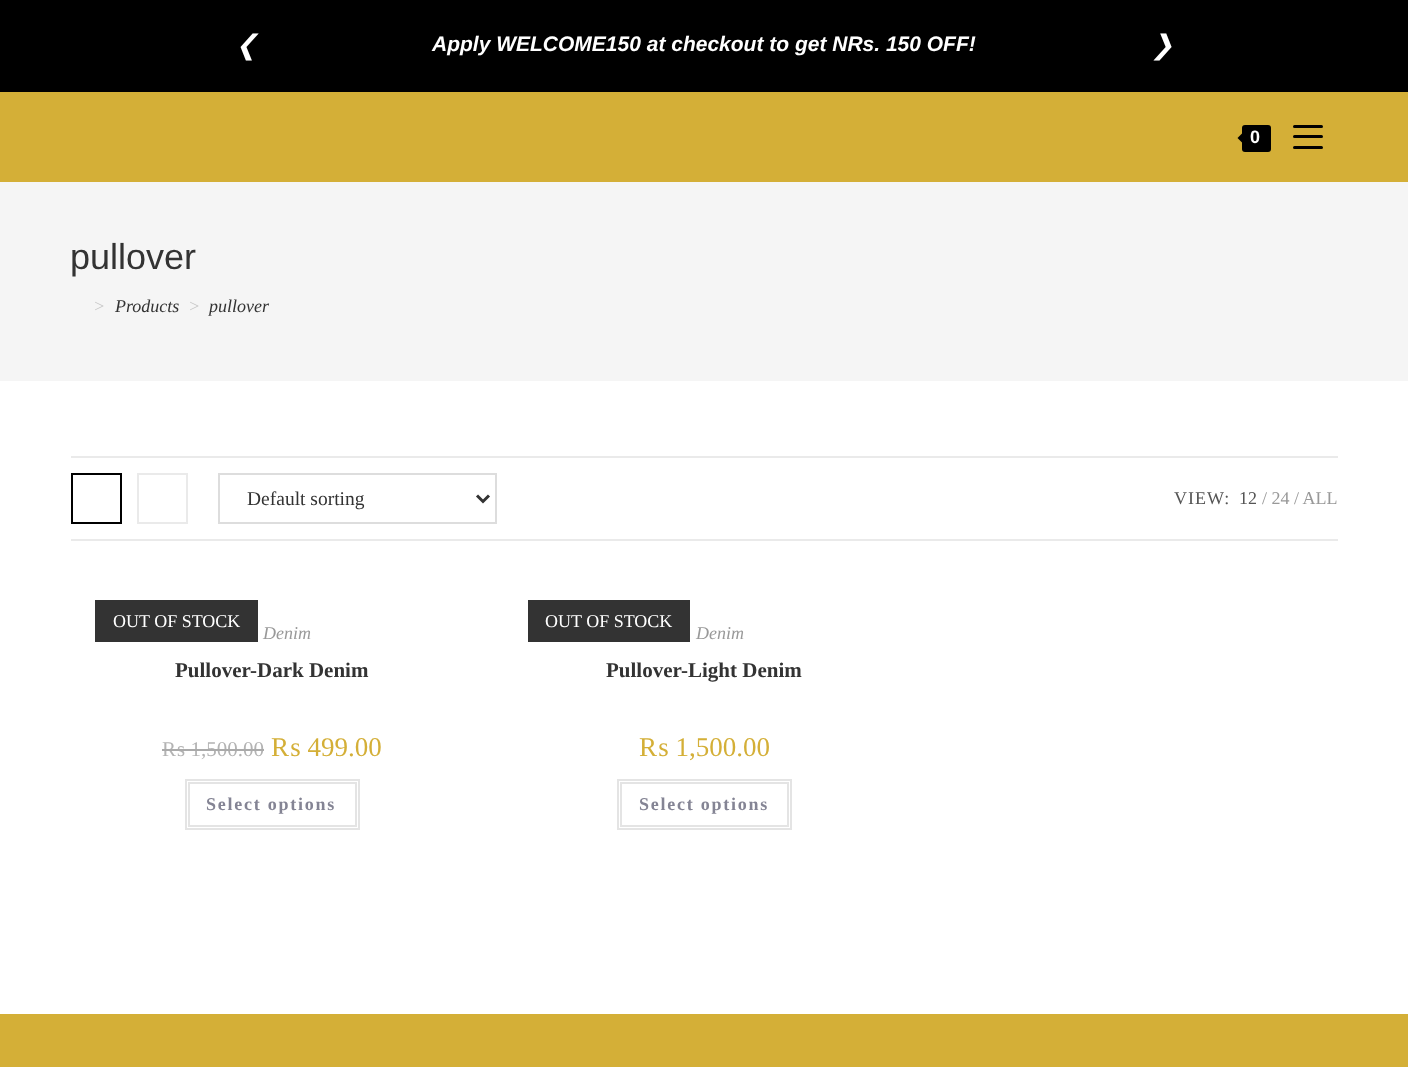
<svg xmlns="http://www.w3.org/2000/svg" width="1408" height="1067">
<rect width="100%" height="100%" fill="#fff"/>
<rect width="1408" height="92" fill="#000"/>
<text x="235" y="54" style="font-family:DejaVu Sans;font-size:27px;font-style:italic;fill:#fff">❮</text>
<text x="432" y="51" style="font-family:Liberation Sans;font-size:21px;font-weight:bold;font-style:italic;fill:#fff">Apply WELCOME150 at checkout to get NRs. 150 OFF!</text>
<text x="1151" y="54" style="font-family:DejaVu Sans;font-size:27px;font-style:italic;fill:#fff">❯</text>
<rect y="92" width="1408" height="90" fill="#d4af37"/>
<rect x="1242" y="125" width="29" height="27" rx="3" fill="#000"/>
<path d="M1245 130.5v15l-7.5-7.5z" fill="#000"/>
<text x="1250" y="143" style="font-family:Liberation Sans;font-size:18px;font-weight:bold;letter-spacing:3px;fill:#fff">0</text>
<rect x="1293" y="135" width="30" height="3" rx="1.5" fill="#000"/>
<rect x="1293" y="125" width="30" height="3" rx="1.5" fill="#000"/>
<rect x="1293" y="146" width="30" height="3" rx="1.5" fill="#000"/>
<rect y="182" width="1408" height="199" fill="#f5f5f5"/>
<text x="70" y="269" style="font-family:Liberation Sans;font-size:36px;fill:#333">pullover</text>
<text x="93" y="312" style="font-family:Liberation Serif;font-size:18px;font-style:italic;fill:#c6c6c6">&gt;</text>
<text x="115" y="312" style="font-family:Liberation Serif;font-size:18px;font-style:italic;fill:#333">Products</text>
<text x="188" y="312" style="font-family:Liberation Serif;font-size:18px;font-style:italic;fill:#c6c6c6">&gt;</text>
<text x="209" y="312" style="font-family:Liberation Serif;font-size:18px;font-style:italic;fill:#333">pullover</text>
<rect x="71" y="456" width="1267" height="2" fill="#eaeaea"/>
<rect x="71" y="539" width="1267" height="2" fill="#eaeaea"/>
<rect x="72" y="474" width="49" height="49" fill="none" stroke="#000" stroke-width="2"/>
<rect x="138" y="474" width="49" height="49" fill="none" stroke="#eaeaea" stroke-width="2"/>
<rect x="219" y="474" width="277" height="49" fill="none" stroke="#ddd" stroke-width="2"/>
<path d="M477 495.5l6 6l6-6" fill="none" stroke="#333" stroke-width="3"/>
<text x="247" y="505" style="font-family:Liberation Serif;font-size:19.5px;fill:#333">Default sorting</text>
<text x="1174" y="504" style="font-family:Liberation Serif;font-size:18px;letter-spacing:1px;fill:#555">VIEW:</text>
<text x="1239" y="504" style="font-family:Liberation Serif;font-size:18px;fill:#555">12</text>
<text x="1262" y="504" style="font-family:Liberation Serif;font-size:18px;fill:#999">/ 24 / ALL</text>
<rect x="95" y="600" width="163" height="42" fill="#000000cc"/>
<text x="113" y="627" style="font-family:Liberation Serif;font-size:18px;fill:#fff">OUT OF STOCK</text>
<text x="263" y="639" style="font-family:Liberation Serif;font-size:18px;font-style:italic;fill:#999">Denim</text>
<text x="175" y="677" style="font-family:Liberation Serif;font-size:21px;font-weight:bold;fill:#333">Pullover-Dark Denim</text>
<text x="162" y="756" style="font-family:Liberation Serif;font-size:21px;fill:#b3b3b3">₨ 1,500.00</text>
<rect x="162" y="749" width="102" height="2" fill="#aaa"/>
<text x="271" y="756" style="font-family:Liberation Serif;font-size:27px;fill:#d4af37">₨ 499.00</text>
<rect x="186" y="780" width="173" height="49" fill="none" stroke="#e4e4e4" stroke-width="2"/>
<rect x="189" y="783" width="167" height="43" fill="none" stroke="#e4e4e4" stroke-width="2"/>
<text x="206" y="810" style="font-family:Liberation Serif;font-size:18px;font-weight:bold;letter-spacing:1.75px;fill:#848494">Select options</text>
<rect x="528" y="600" width="162" height="42" fill="#000000cc"/>
<text x="545" y="627" style="font-family:Liberation Serif;font-size:18px;fill:#fff">OUT OF STOCK</text>
<text x="696" y="639" style="font-family:Liberation Serif;font-size:18px;font-style:italic;fill:#999">Denim</text>
<text x="606" y="677" style="font-family:Liberation Serif;font-size:21px;font-weight:bold;fill:#333">Pullover-Light Denim</text>
<text x="639" y="756" style="font-family:Liberation Serif;font-size:27px;fill:#d4af37">₨ 1,500.00</text>
<rect x="618" y="780" width="173" height="49" fill="none" stroke="#e4e4e4" stroke-width="2"/>
<rect x="621" y="783" width="167" height="43" fill="none" stroke="#e4e4e4" stroke-width="2"/>
<text x="639" y="810" style="font-family:Liberation Serif;font-size:18px;font-weight:bold;letter-spacing:1.75px;fill:#848494">Select options</text>
<rect y="1014" width="1408" height="53" fill="#d4af37"/>
</svg>
